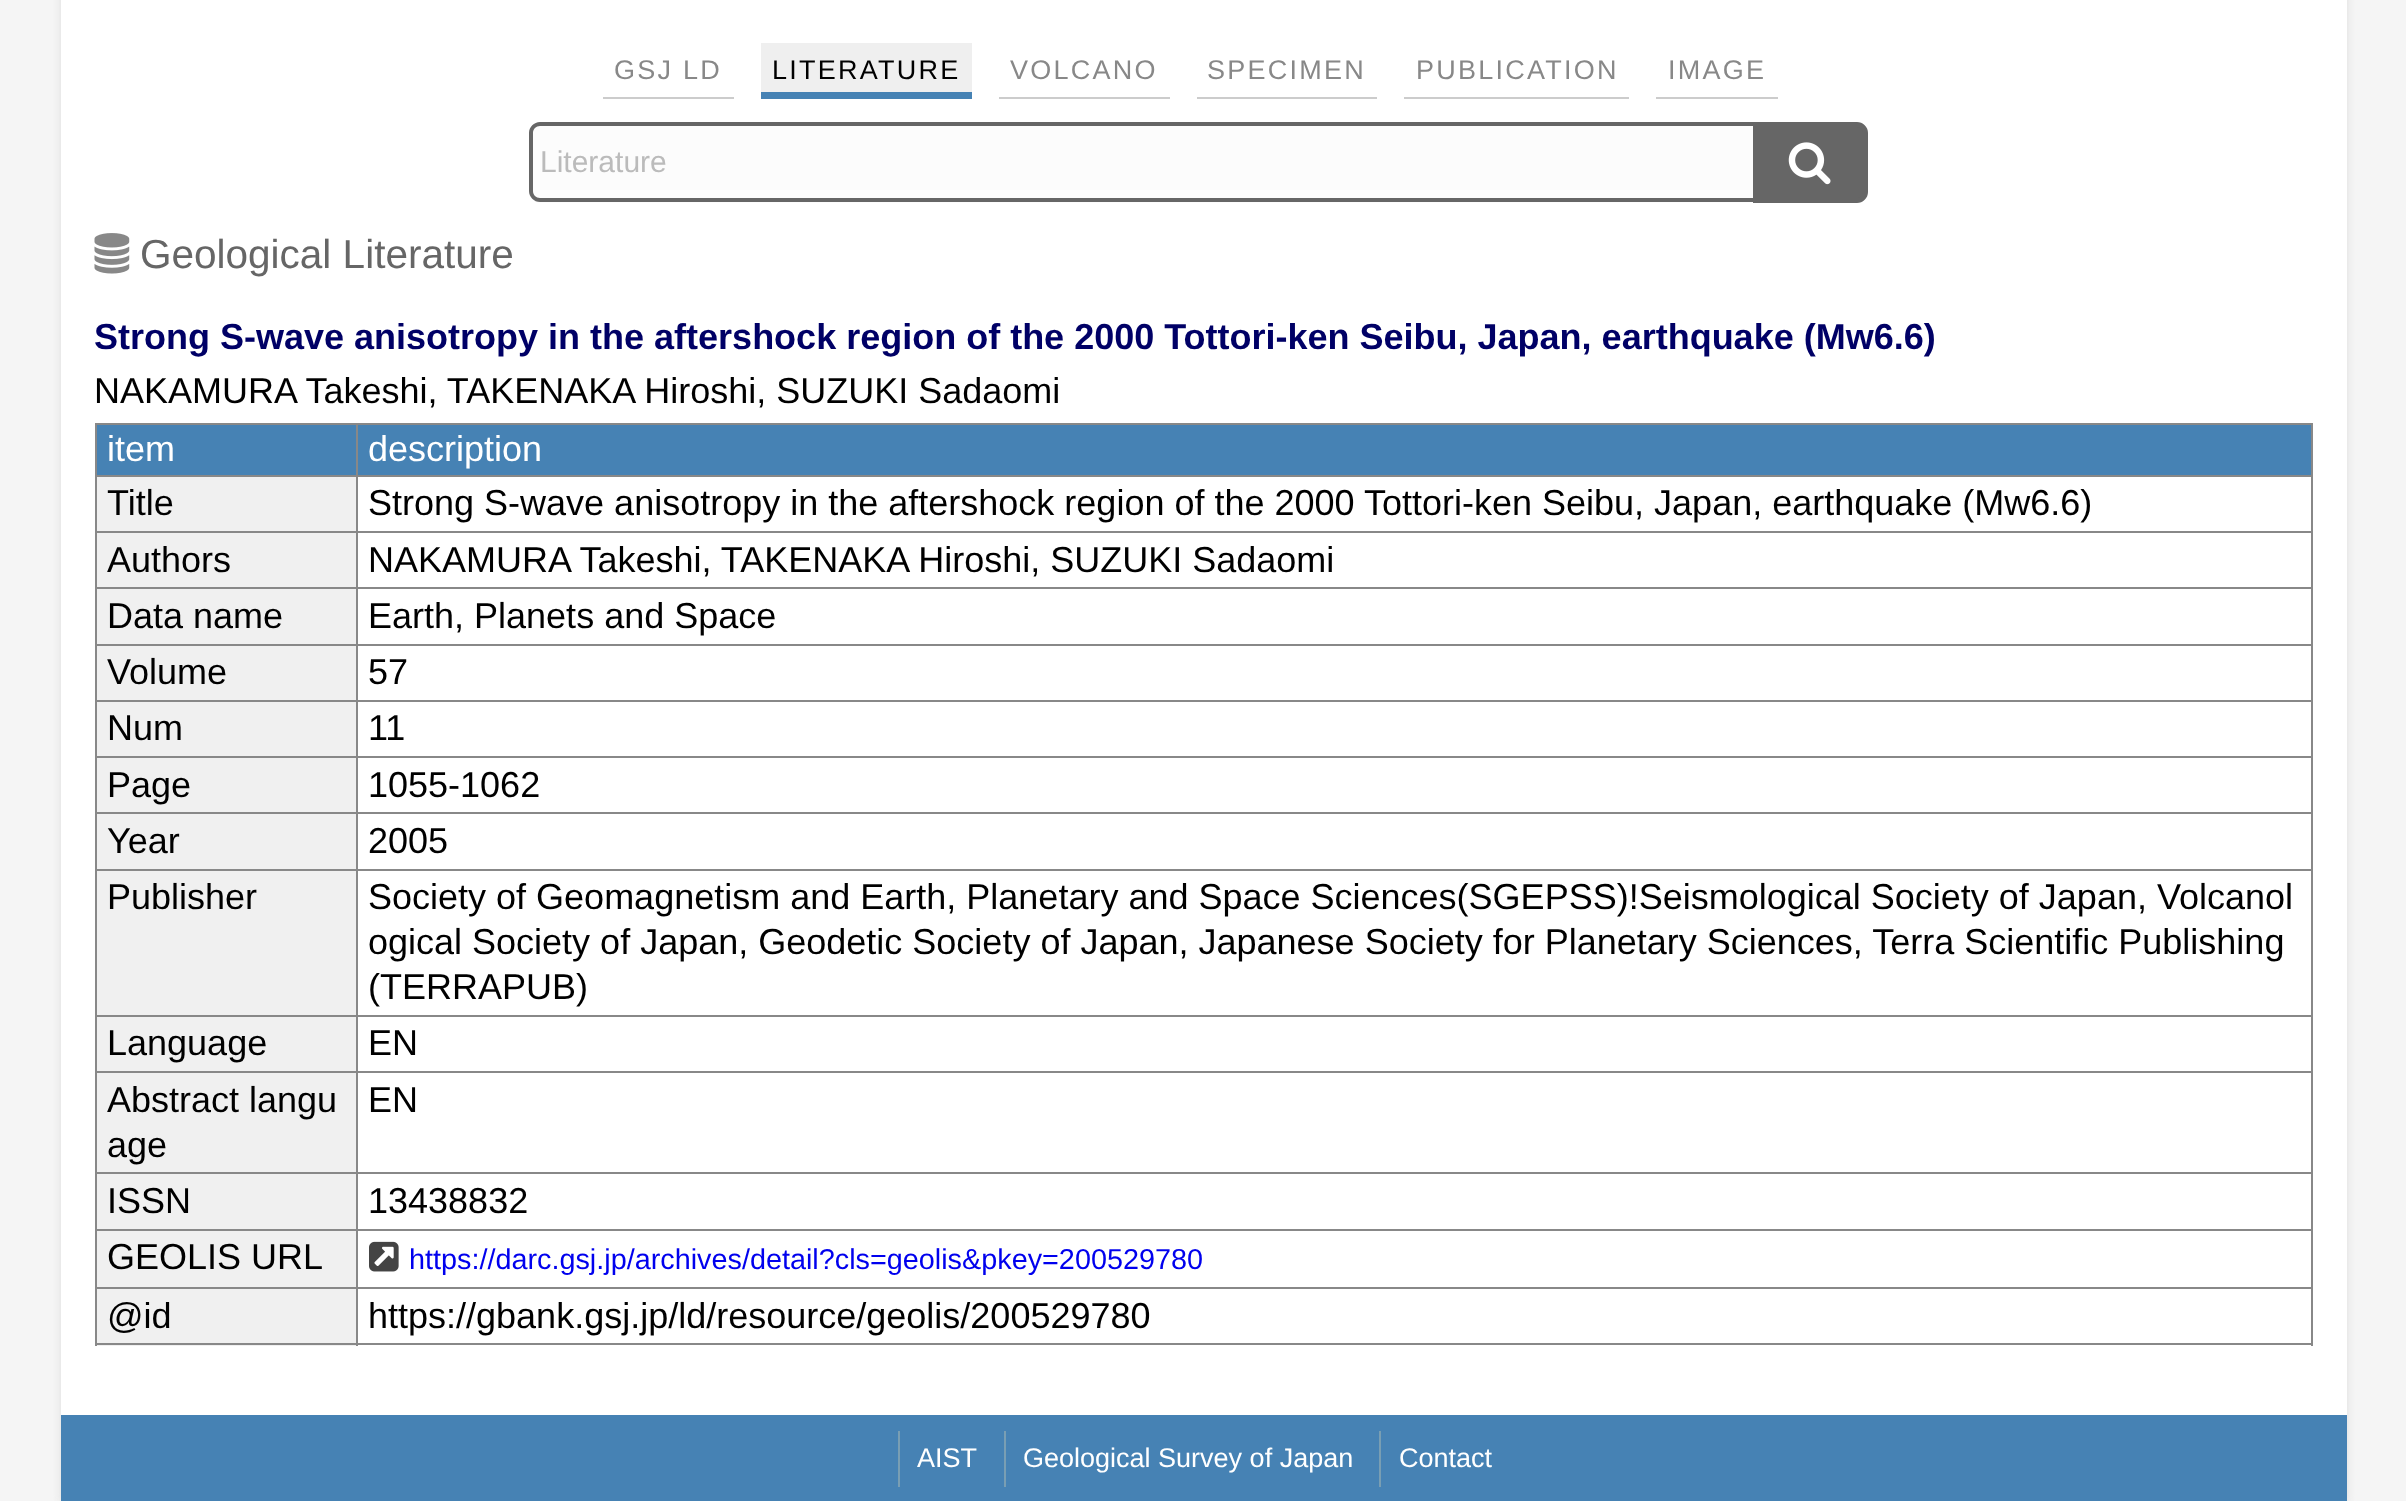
<svg xmlns="http://www.w3.org/2000/svg" width="2406" height="1501">
<rect width="100%" height="100%" fill="#f5f5f5"/>
<rect x="61" y="-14" width="2286" height="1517" fill="#ddd" filter="blur(4.5px)"/>
<rect x="61" width="2286" height="1415" fill="#fff"/>
<rect x="603" y="97" width="131" height="2" fill="#ccc"/>
<text x="614" y="79" style="font-family:Liberation Sans;font-size:27px;letter-spacing:2.25px;fill:#888">GSJ LD</text>
<rect x="761" y="43" width="211" height="49" fill="#efefef"/>
<rect x="761" y="92" width="211" height="7" fill="#4682b4"/>
<text x="772" y="79" style="font-family:Liberation Sans;font-size:27px;letter-spacing:2.25px;fill:#000">LITERATURE</text>
<rect x="999" y="97" width="171" height="2" fill="#ccc"/>
<text x="1010" y="79" style="font-family:Liberation Sans;font-size:27px;letter-spacing:2.25px;fill:#888">VOLCANO</text>
<rect x="1197" y="97" width="180" height="2" fill="#ccc"/>
<text x="1207" y="79" style="font-family:Liberation Sans;font-size:27px;letter-spacing:2.25px;fill:#888">SPECIMEN</text>
<rect x="1404" y="97" width="225" height="2" fill="#ccc"/>
<text x="1416" y="79" style="font-family:Liberation Sans;font-size:27px;letter-spacing:2.25px;fill:#888">PUBLICATION</text>
<rect x="1656" y="97" width="122" height="2" fill="#ccc"/>
<text x="1668" y="79" style="font-family:Liberation Sans;font-size:27px;letter-spacing:2.25px;fill:#888">IMAGE</text>
<path d="M540 122h1213v81h-1213c-6 0-11-5-11-11v-59c0-6 5-11 11-11z" fill="#fcfcfc"/>
<path d="M540 122h1213v80h-1213c-6 0-11-5-11-11v-58c0-6 5-11 11-11zm0 4h1213v72h-1213c-4 0-7-3-7-7v-58c0-4 3-7 7-7z" fill="#666" fill-rule="evenodd"/>
<text x="540" y="172" style="font-family:Liberation Sans;font-size:30px;fill:#bbb">Literature</text>
<path d="M1755.5 124.5h101.5c4.5 0 8.5 4 8.5 8.5v59c0 4.5-4 8.5-8.5 8.5h-101.5z" fill="#666" stroke="#666" stroke-width="5"/>
<image x="1788" y="142" width="43" height="43" href="media/1.png"/>
<image x="94" y="233" width="36" height="41" href="media/2.png"/>
<text x="140" y="268" style="font-family:Liberation Sans;font-size:40.5px;fill:#666">Geological Literature</text>
<text x="94" y="349" style="font-family:Liberation Sans;font-size:36px;font-weight:bold;fill:#006">Strong S-wave anisotropy in the aftershock region of the 2000 Tottori-ken Seibu, Japan, earthquake (Mw6.6)</text>
<text x="94" y="403" style="font-family:Liberation Sans;font-size:36px;fill:#000">NAKAMURA Takeshi, TAKENAKA Hiroshi, SUZUKI Sadaomi</text>
<rect x="97" y="425" width="259" height="50" fill="#4682b4"/>
<rect x="356" y="423" width="1957" height="2" fill="#888"/>
<rect x="356" y="475" width="1957" height="2" fill="#888"/>
<rect x="356" y="531" width="1957" height="2" fill="#888"/>
<rect x="97" y="533" width="259" height="111" fill="#f0f0f0"/>
<rect x="356" y="587" width="1957" height="2" fill="#888"/>
<rect x="356" y="644" width="1957" height="2" fill="#888"/>
<rect x="356" y="700" width="1957" height="2" fill="#888"/>
<rect x="356" y="756" width="1957" height="2" fill="#888"/>
<rect x="97" y="758" width="259" height="111" fill="#f0f0f0"/>
<rect x="356" y="812" width="1957" height="2" fill="#888"/>
<rect x="356" y="869" width="1957" height="2" fill="#888"/>
<rect x="356" y="1015" width="1957" height="2" fill="#888"/>
<rect x="356" y="1071" width="1957" height="2" fill="#888"/>
<rect x="97" y="1073" width="259" height="156" fill="#f0f0f0"/>
<rect x="356" y="1172" width="1957" height="2" fill="#888"/>
<rect x="356" y="1229" width="1957" height="2" fill="#888"/>
<rect x="356" y="1287" width="1957" height="2" fill="#888"/>
<rect x="2311" y="1287" width="2" height="59" fill="#888"/>
<rect x="356" y="1343" width="1957" height="2" fill="#888"/>
<rect x="356" y="1287" width="2" height="59" fill="#888"/>
<rect x="95" y="1287" width="263" height="2" fill="#888"/>
<rect x="356" y="1229" width="2" height="60" fill="#888"/>
<rect x="95" y="1229" width="263" height="2" fill="#888"/>
<rect x="356" y="1172" width="2" height="59" fill="#888"/>
<rect x="95" y="1172" width="263" height="2" fill="#888"/>
<rect x="356" y="1071" width="2" height="104" fill="#888"/>
<rect x="95" y="1071" width="263" height="2" fill="#888"/>
<rect x="356" y="1015" width="2" height="58" fill="#888"/>
<rect x="95" y="1015" width="263" height="2" fill="#888"/>
<rect x="356" y="869" width="2" height="148" fill="#888"/>
<rect x="95" y="869" width="263" height="2" fill="#888"/>
<rect x="356" y="812" width="2" height="59" fill="#888"/>
<rect x="95" y="812" width="263" height="2" fill="#888"/>
<rect x="356" y="756" width="2" height="59" fill="#888"/>
<rect x="95" y="756" width="263" height="2" fill="#888"/>
<rect x="356" y="700" width="2" height="58" fill="#888"/>
<rect x="95" y="700" width="263" height="2" fill="#888"/>
<rect x="356" y="644" width="2" height="58" fill="#888"/>
<rect x="95" y="644" width="263" height="2" fill="#888"/>
<rect x="356" y="587" width="2" height="59" fill="#888"/>
<rect x="95" y="587" width="263" height="2" fill="#888"/>
<rect x="356" y="531" width="2" height="59" fill="#888"/>
<rect x="95" y="531" width="263" height="2" fill="#888"/>
<rect x="356" y="475" width="2" height="58" fill="#888"/>
<rect x="95" y="475" width="263" height="2" fill="#888"/>
<rect x="356" y="423" width="2" height="54" fill="#888"/>
<rect x="95" y="423" width="263" height="2" fill="#888"/>
<rect x="97" y="1289" width="259" height="57" fill="#f0f0f0"/>
<rect x="95" y="1343" width="263" height="2" fill="#888"/>
<rect x="95" y="1287" width="2" height="59" fill="#888"/>
<rect x="95" y="1229" width="2" height="60" fill="#888"/>
<rect x="95" y="1172" width="2" height="59" fill="#888"/>
<rect x="95" y="1071" width="2" height="104" fill="#888"/>
<rect x="95" y="1015" width="2" height="58" fill="#888"/>
<rect x="95" y="869" width="2" height="148" fill="#888"/>
<rect x="95" y="812" width="2" height="59" fill="#888"/>
<rect x="95" y="756" width="2" height="59" fill="#888"/>
<rect x="95" y="700" width="2" height="58" fill="#888"/>
<rect x="95" y="644" width="2" height="58" fill="#888"/>
<rect x="95" y="587" width="2" height="59" fill="#888"/>
<rect x="95" y="531" width="2" height="59" fill="#888"/>
<rect x="95" y="475" width="2" height="58" fill="#888"/>
<rect x="95" y="423" width="2" height="54" fill="#888"/>
<text x="107" y="461" style="font-family:Liberation Sans;font-size:36px;fill:#fff">item</text>
<rect x="358" y="425" width="1953" height="50" fill="#4682b4"/>
<rect x="2311" y="1229" width="2" height="60" fill="#888"/>
<rect x="2311" y="1172" width="2" height="59" fill="#888"/>
<rect x="2311" y="1071" width="2" height="104" fill="#888"/>
<rect x="2311" y="1015" width="2" height="58" fill="#888"/>
<rect x="2311" y="869" width="2" height="148" fill="#888"/>
<rect x="2311" y="812" width="2" height="59" fill="#888"/>
<rect x="2311" y="756" width="2" height="59" fill="#888"/>
<rect x="2311" y="700" width="2" height="58" fill="#888"/>
<rect x="2311" y="644" width="2" height="58" fill="#888"/>
<rect x="2311" y="587" width="2" height="59" fill="#888"/>
<rect x="2311" y="531" width="2" height="59" fill="#888"/>
<rect x="2311" y="475" width="2" height="58" fill="#888"/>
<rect x="2311" y="423" width="2" height="54" fill="#888"/>
<text x="368" y="461" style="font-family:Liberation Sans;font-size:36px;fill:#fff">description</text>
<rect x="97" y="477" width="259" height="54" fill="#f0f0f0"/>
<text x="107" y="515" style="font-family:Liberation Sans;font-size:36px;fill:#000">Title</text>
<text x="368" y="515" style="font-family:Liberation Sans;font-size:36px;fill:#000">Strong S-wave anisotropy in the aftershock region of the 2000 Tottori-ken Seibu, Japan, earthquake (Mw6.6)</text>
<text x="107" y="572" style="font-family:Liberation Sans;font-size:36px;fill:#000">Authors</text>
<text x="368" y="572" style="font-family:Liberation Sans;font-size:36px;fill:#000">NAKAMURA Takeshi, TAKENAKA Hiroshi, SUZUKI Sadaomi</text>
<text x="107" y="628" style="font-family:Liberation Sans;font-size:36px;fill:#000">Data name</text>
<text x="368" y="628" style="font-family:Liberation Sans;font-size:36px;fill:#000">Earth, Planets and Space</text>
<rect x="97" y="646" width="259" height="54" fill="#f0f0f0"/>
<text x="107" y="684" style="font-family:Liberation Sans;font-size:36px;fill:#000">Volume</text>
<text x="368" y="684" style="font-family:Liberation Sans;font-size:36px;fill:#000">57</text>
<rect x="97" y="702" width="259" height="54" fill="#f0f0f0"/>
<text x="107" y="740" style="font-family:Liberation Sans;font-size:36px;fill:#000">Num</text>
<text x="368" y="740" style="font-family:Liberation Sans;font-size:36px;fill:#000">11</text>
<text x="107" y="797" style="font-family:Liberation Sans;font-size:36px;fill:#000">Page</text>
<text x="368" y="797" style="font-family:Liberation Sans;font-size:36px;fill:#000">1055-1062</text>
<text x="107" y="853" style="font-family:Liberation Sans;font-size:36px;fill:#000">Year</text>
<text x="368" y="853" style="font-family:Liberation Sans;font-size:36px;fill:#000">2005</text>
<rect x="97" y="871" width="259" height="144" fill="#f0f0f0"/>
<text x="107" y="909" style="font-family:Liberation Sans;font-size:36px;fill:#000">Publisher</text>
<text x="368" y="909" style="font-family:Liberation Sans;font-size:36px;fill:#000">Society of Geomagnetism and Earth, Planetary and Space Sciences(SGEPSS)!Seismological Society of Japan, Volcanol</text>
<text x="368" y="954" style="font-family:Liberation Sans;font-size:36px;fill:#000">ogical Society of Japan, Geodetic Society of Japan, Japanese Society for Planetary Sciences, Terra Scientific Publishing</text>
<text x="368" y="999" style="font-family:Liberation Sans;font-size:36px;fill:#000">(TERRAPUB)</text>
<rect x="97" y="1017" width="259" height="54" fill="#f0f0f0"/>
<text x="107" y="1055" style="font-family:Liberation Sans;font-size:36px;fill:#000">Language</text>
<text x="368" y="1055" style="font-family:Liberation Sans;font-size:36px;fill:#000">EN</text>
<text x="107" y="1112" style="font-family:Liberation Sans;font-size:36px;fill:#000">Abstract langu</text>
<text x="107" y="1157" style="font-family:Liberation Sans;font-size:36px;fill:#000">age</text>
<text x="368" y="1112" style="font-family:Liberation Sans;font-size:36px;fill:#000">EN</text>
<text x="107" y="1213" style="font-family:Liberation Sans;font-size:36px;fill:#000">ISSN</text>
<text x="368" y="1213" style="font-family:Liberation Sans;font-size:36px;fill:#000">13438832</text>
<rect x="97" y="1231" width="259" height="56" fill="#f0f0f0"/>
<text x="107" y="1269" style="font-family:Liberation Sans;font-size:36px;fill:#000">GEOLIS URL</text>
<image x="369" y="1241" width="30" height="31" href="media/3.png"/>
<text x="409" y="1269" style="font-family:Liberation Sans;font-size:28.8px;fill:#00e">https://darc.gsj.jp/archives/detail?cls=geolis&amp;pkey=200529780</text>
<text x="107" y="1328" style="font-family:Liberation Sans;font-size:36px;fill:#000">@id</text>
<text x="368" y="1328" style="font-family:Liberation Sans;font-size:36px;fill:#000">https://gbank.gsj.jp/ld/resource/geolis/200529780</text>
<rect x="61" y="1415" width="2286" height="86" fill="#4682b4"/>
<rect x="898" y="1431" width="2" height="56" fill="#799eb3"/>
<text x="917" y="1467" style="font-family:Liberation Sans;font-size:27px;fill:#fff">AIST</text>
<rect x="1004" y="1431" width="2" height="56" fill="#799eb3"/>
<text x="1023" y="1467" style="font-family:Liberation Sans;font-size:27px;fill:#fff">Geological Survey of Japan</text>
<rect x="1379" y="1431" width="2" height="56" fill="#799eb3"/>
<text x="1399" y="1467" style="font-family:Liberation Sans;font-size:27px;fill:#fff">Contact</text>
</svg>
